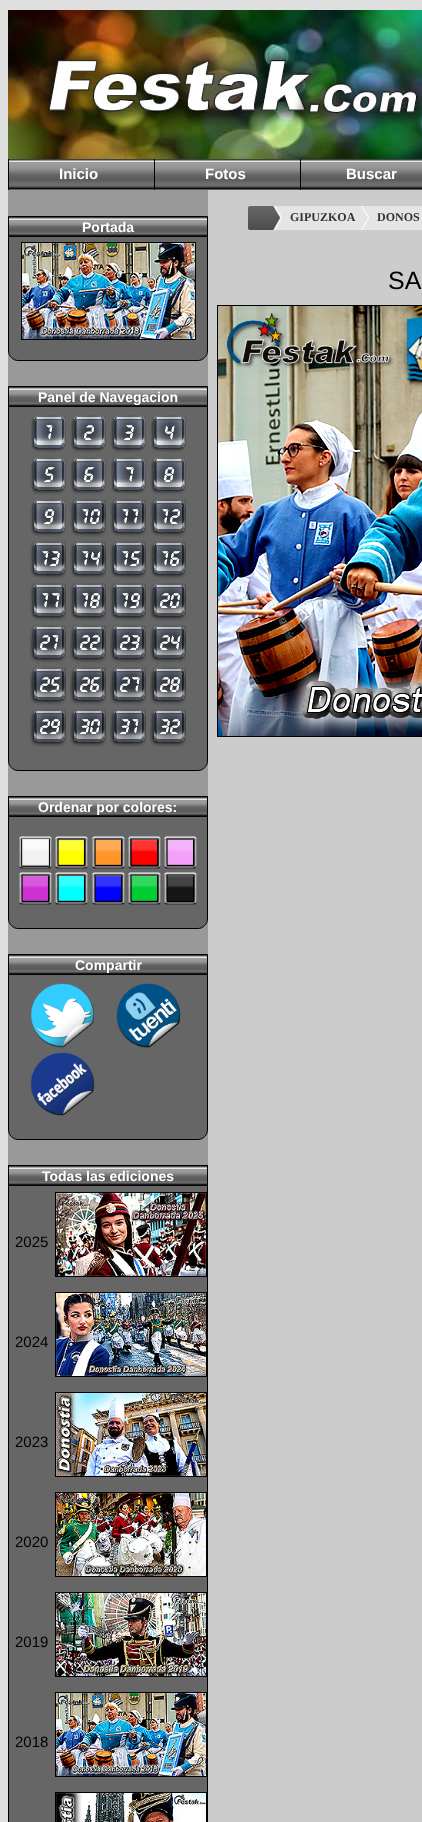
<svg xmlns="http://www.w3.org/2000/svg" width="422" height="1822">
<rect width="100%" height="100%" fill="#dfdfdf"/>
<rect x="8" y="190" width="200" height="975" fill="#999"/>
<image x="8" y="10" width="414" height="149" href="media/1.png"/>
<image x="9" y="159" width="413" height="31" href="media/2.png"/>
<rect x="154" y="159" width="1" height="31" fill="#000"/>
<rect x="8" y="159" width="1" height="31" fill="#000"/>
<text x="59" y="179" style="font-family:Liberation Sans;font-size:15px;font-weight:bold;fill:#fff">Inicio</text>
<rect x="300" y="159" width="1" height="31" fill="#000"/>
<text x="205" y="179" style="font-family:Liberation Sans;font-size:15px;font-weight:bold;fill:#fff">Fotos</text>
<text x="346" y="179" style="font-family:Liberation Sans;font-size:15px;font-weight:bold;fill:#fff">Buscar</text>
<rect x="208" y="190" width="214" height="1632" fill="#ccc"/>
<path d="M8.5 216.5h199v134.5c0 5-4.5 9.5-9.5 9.5h-180c-5 0-9.5-4.5-9.5-9.5z" fill="#666" stroke="#000"/>
<image x="9" y="217" width="198" height="20" href="media/3.png"/>
<text x="82" y="232" style="font-family:Liberation Sans;font-size:14px;font-weight:bold;fill:#fff">Portada</text>
<rect x="21.5" y="242.5" width="174" height="97" fill="none" stroke="#000"/>
<image x="22" y="243" width="173" height="96" href="media/4.png"/>
<path d="M8.5 386.5h199v374.5c0 5-4.5 9.5-9.5 9.5h-180c-5 0-9.5-4.5-9.5-9.5z" fill="#666" stroke="#000"/>
<image x="9" y="387" width="198" height="20" href="media/3.png"/>
<text x="38" y="402" style="font-family:Liberation Sans;font-size:14px;font-weight:bold;fill:#fff">Panel de Navegacion</text>
<image x="31" y="415" width="35" height="38" href="media/5.png"/>
<image x="70" y="415" width="36" height="38" href="media/6.png"/>
<image x="110" y="415" width="36" height="38" href="media/7.png"/>
<image x="150" y="415" width="36" height="38" href="media/8.png"/>
<image x="30" y="457" width="36" height="38" href="media/9.png"/>
<image x="70" y="457" width="36" height="38" href="media/10.png"/>
<image x="111" y="457" width="35" height="38" href="media/11.png"/>
<image x="150" y="457" width="36" height="38" href="media/12.png"/>
<image x="30" y="499" width="36" height="38" href="media/13.png"/>
<image x="70" y="499" width="36" height="38" href="media/14.png"/>
<image x="110" y="499" width="36" height="38" href="media/15.png"/>
<image x="150" y="499" width="36" height="38" href="media/16.png"/>
<image x="30" y="541" width="36" height="38" href="media/17.png"/>
<image x="70" y="541" width="36" height="38" href="media/18.png"/>
<image x="110" y="541" width="36" height="38" href="media/19.png"/>
<image x="150" y="541" width="36" height="38" href="media/20.png"/>
<image x="30" y="583" width="36" height="38" href="media/21.png"/>
<image x="70" y="583" width="36" height="38" href="media/22.png"/>
<image x="110" y="583" width="36" height="38" href="media/23.png"/>
<image x="150" y="583" width="36" height="38" href="media/24.png"/>
<image x="30" y="625" width="36" height="38" href="media/25.png"/>
<image x="70" y="625" width="36" height="38" href="media/26.png"/>
<image x="110" y="625" width="36" height="38" href="media/27.png"/>
<image x="150" y="625" width="36" height="38" href="media/28.png"/>
<image x="30" y="667" width="36" height="38" href="media/29.png"/>
<image x="70" y="667" width="36" height="38" href="media/30.png"/>
<image x="110" y="667" width="36" height="38" href="media/31.png"/>
<image x="150" y="667" width="36" height="38" href="media/32.png"/>
<image x="30" y="709" width="36" height="38" href="media/33.png"/>
<image x="70" y="709" width="36" height="38" href="media/34.png"/>
<image x="110" y="709" width="36" height="38" href="media/35.png"/>
<image x="150" y="709" width="36" height="38" href="media/36.png"/>
<path d="M8.5 796.5h199v122.5c0 5-4.5 9.5-9.5 9.5h-180c-5 0-9.5-4.5-9.5-9.5z" fill="#666" stroke="#000"/>
<image x="9" y="797" width="198" height="20" href="media/3.png"/>
<text x="38" y="812" style="font-family:Liberation Sans;font-size:14px;font-weight:bold;fill:#fff">Ordenar por colores:</text>
<image x="19" y="836" width="33" height="33" href="media/37.png"/>
<image x="55" y="836" width="33" height="33" href="media/38.png"/>
<image x="92" y="836" width="33" height="33" href="media/39.png"/>
<image x="128" y="836" width="33" height="33" href="media/40.png"/>
<image x="164" y="836" width="33" height="33" href="media/41.png"/>
<image x="19" y="872" width="33" height="33" href="media/42.png"/>
<image x="55" y="872" width="33" height="33" href="media/43.png"/>
<image x="92" y="872" width="33" height="33" href="media/44.png"/>
<image x="128" y="872" width="33" height="33" href="media/45.png"/>
<image x="164" y="872" width="33" height="33" href="media/46.png"/>
<path d="M8.5 954.5h199v175.5c0 5-4.5 9.5-9.5 9.5h-180c-5 0-9.5-4.5-9.5-9.5z" fill="#666" stroke="#000"/>
<image x="9" y="955" width="198" height="20" href="media/3.png"/>
<text x="75" y="970" style="font-family:Liberation Sans;font-size:14px;font-weight:bold;fill:#fff">Compartir</text>
<image x="30" y="983" width="64" height="65" href="media/47.png"/>
<image x="116" y="983" width="65" height="65" href="media/48.png"/>
<image x="30" y="1052" width="65" height="64" href="media/49.png"/>
<rect x="9" y="1186" width="198" height="636" fill="#666"/>
<rect x="8.5" y="1165.5" width="199" height="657" fill="none" stroke="#000"/>
<image x="9" y="1166" width="198" height="20" href="media/3.png"/>
<text x="42" y="1181" style="font-family:Liberation Sans;font-size:14px;font-weight:bold;fill:#fff">Todas las ediciones</text>
<text x="15" y="1247" style="font-family:Liberation Sans;font-size:15px;fill:#000">2025</text>
<rect x="55.5" y="1192.5" width="151" height="84" fill="none" stroke="#000"/>
<image x="56" y="1193" width="150" height="83" href="media/50.png"/>
<text x="15" y="1347" style="font-family:Liberation Sans;font-size:15px;fill:#000">2024</text>
<rect x="55.5" y="1292.5" width="151" height="84" fill="none" stroke="#000"/>
<image x="56" y="1293" width="150" height="83" href="media/51.png"/>
<text x="15" y="1447" style="font-family:Liberation Sans;font-size:15px;fill:#000">2023</text>
<rect x="55.5" y="1392.5" width="151" height="84" fill="none" stroke="#000"/>
<image x="56" y="1393" width="150" height="83" href="media/52.png"/>
<text x="15" y="1547" style="font-family:Liberation Sans;font-size:15px;fill:#000">2020</text>
<rect x="55.5" y="1492.5" width="151" height="84" fill="none" stroke="#000"/>
<image x="56" y="1493" width="150" height="83" href="media/53.png"/>
<text x="15" y="1647" style="font-family:Liberation Sans;font-size:15px;fill:#000">2019</text>
<rect x="55.5" y="1592.5" width="151" height="84" fill="none" stroke="#000"/>
<image x="56" y="1593" width="150" height="83" href="media/54.png"/>
<text x="15" y="1747" style="font-family:Liberation Sans;font-size:15px;fill:#000">2018</text>
<rect x="55.5" y="1692.5" width="151" height="84" fill="none" stroke="#000"/>
<image x="56" y="1693" width="150" height="83" href="media/55.png"/>
<rect x="55.5" y="1792.5" width="151" height="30" fill="none" stroke="#000"/>
<image x="56" y="1793" width="150" height="29" href="media/56.png"/>
<image x="274" y="206" width="8" height="24" href="media/58.png"/>
<image x="248" y="206" width="32" height="24" href="media/57.png"/>
<rect x="282" y="206" width="79" height="24" fill="#e5e5e5"/>
<text x="290" y="221" style="font-family:Liberation Serif;font-size:12px;font-weight:bold;fill:#333">GIPUZKOA</text>
<rect x="369" y="206" width="53" height="24" fill="#e5e5e5"/>
<image x="361" y="206" width="8" height="24" href="media/58.png"/>
<text x="377" y="221" style="font-family:Liberation Serif;font-size:12px;font-weight:bold;fill:#333">DONOS</text>
<text x="388" y="289" style="font-family:Liberation Sans;font-size:25px;fill:#000">SA</text>
<rect x="217.5" y="305.5" width="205" height="431" fill="none" stroke="#000"/>
<image x="218" y="306" width="204" height="430" href="media/59.png"/>
</svg>
